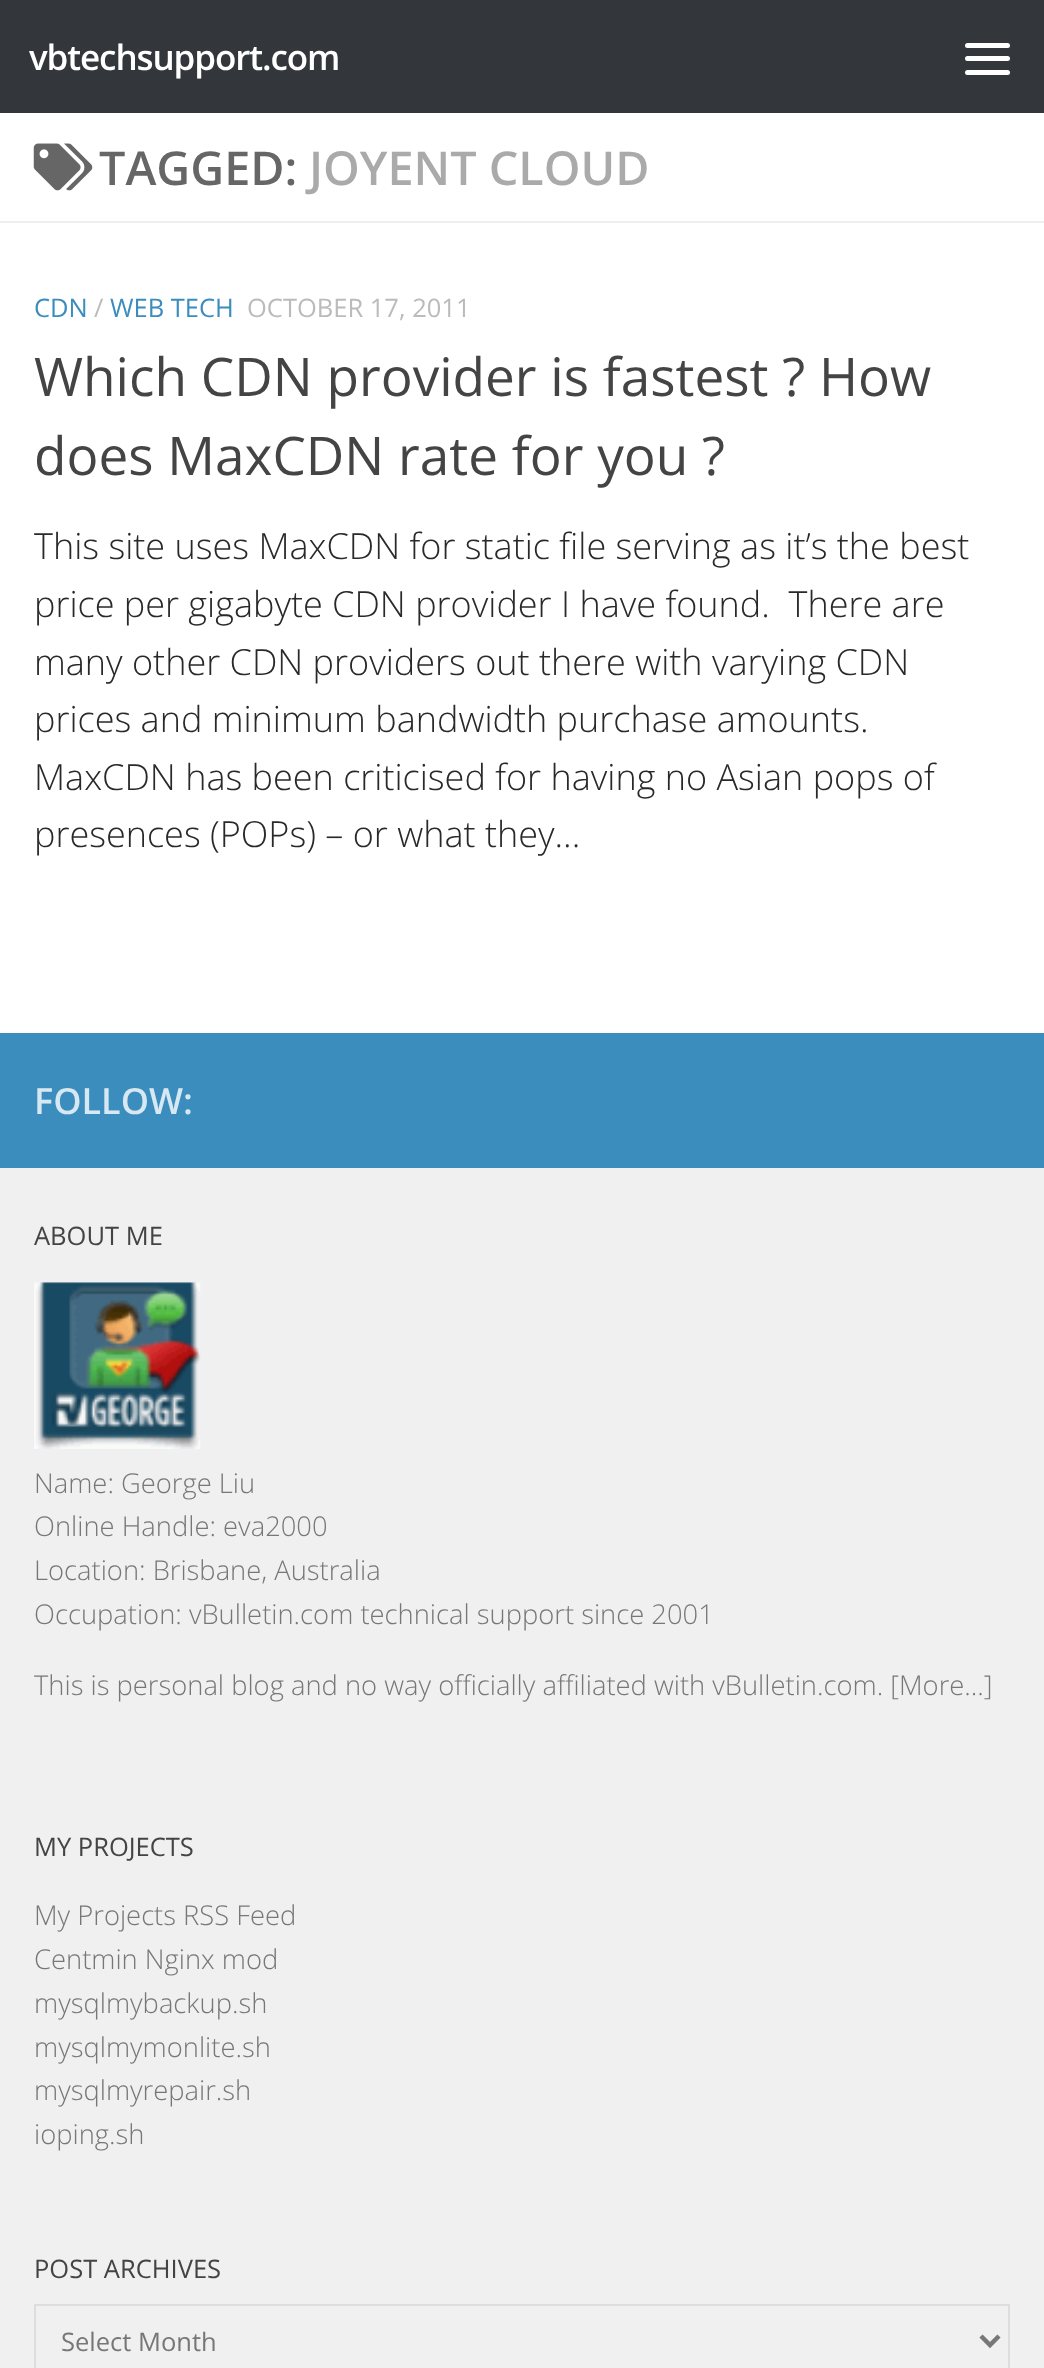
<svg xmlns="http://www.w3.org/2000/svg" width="1044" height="2368">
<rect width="100%" height="100%" fill="#fff"/>
<rect width="1044" height="113" fill="#33363b"/>
<text x="29" y="70" style="font-family:Open Sans;font-size:35px;font-weight:600;letter-spacing:-1.1px;fill:#fff">vbtechsupport.com</text>
<rect x="965" y="43" width="45" height="5" rx="2.5" fill="#fff"/>
<rect x="965" y="56" width="45" height="5" rx="2.5" fill="#fff"/>
<rect x="965" y="70" width="45" height="5" rx="2.5" fill="#fff"/>
<rect y="221" width="1044" height="2" fill="#eee"/>
<image x="33" y="143" width="60" height="48" href="media/1.png"/>
<text x="99" y="185" style="font-family:Open Sans;font-size:46.75px;font-weight:600;fill:#666">TAGGED:</text>
<text x="309" y="185" style="font-family:Open Sans;font-size:46.75px;font-weight:600;fill:#aaa">JOYENT CLOUD</text>
<text x="34" y="317" style="font-family:Open Sans;font-size:25.5px;fill:#3b8dbd">CDN</text>
<text x="94" y="317" style="font-family:Open Sans;font-size:25.5px;fill:#bbb">/</text>
<text x="110" y="317" style="font-family:Open Sans;font-size:25.5px;fill:#3b8dbd">WEB TECH</text>
<text x="247" y="317" style="font-family:Open Sans;font-size:25.5px;fill:#bbb">OCTOBER 17, 2011</text>
<text x="34" y="396" style="font-family:Open Sans;font-size:53.1px;fill:#444">Which CDN provider is fastest ? How</text>
<text x="34" y="475" style="font-family:Open Sans;font-size:53.1px;fill:#444">does MaxCDN rate for you ?</text>
<text x="34" y="559" style="font-family:Open Sans;font-size:36px;font-weight:300;fill:#292929">This site uses MaxCDN for static file serving as it’s the best</text>
<text x="34" y="617" style="font-family:Open Sans;font-size:36px;font-weight:300;fill:#292929" xml:space="preserve">price per gigabyte CDN provider I have found.  There are</text>
<text x="34" y="675" style="font-family:Open Sans;font-size:36px;font-weight:300;fill:#292929">many other CDN providers out there with varying CDN</text>
<text x="34" y="732" style="font-family:Open Sans;font-size:36px;font-weight:300;fill:#292929">prices and minimum bandwidth purchase amounts.</text>
<text x="34" y="790" style="font-family:Open Sans;font-size:36px;font-weight:300;fill:#292929">MaxCDN has been criticised for having no Asian pops of</text>
<text x="34" y="847" style="font-family:Open Sans;font-size:36px;font-weight:300;fill:#292929">presences (POPs) – or what they...</text>
<rect y="1168" width="1044" height="1200" fill="#f0f0f0"/>
<rect y="1033" width="1044" height="135" fill="#3b8dbd"/>
<text x="34" y="1114" style="font-family:Open Sans;font-size:36px;font-weight:600;fill:#d8e8f2">FOLLOW:</text>
<text x="34" y="1245" style="font-family:Open Sans;font-size:25.5px;fill:#444">ABOUT ME</text>
<image x="34" y="1282" width="167" height="167" href="media/2.png"/>
<text x="34" y="1493" style="font-family:Open Sans;font-size:27.35px;font-weight:300;fill:#777">Name: George Liu</text>
<text x="34" y="1536" style="font-family:Open Sans;font-size:27.35px;font-weight:300;fill:#777">Online Handle: eva2000</text>
<text x="34" y="1580" style="font-family:Open Sans;font-size:27.35px;font-weight:300;fill:#777">Location: Brisbane, Australia</text>
<text x="34" y="1624" style="font-family:Open Sans;font-size:27.35px;font-weight:300;fill:#777">Occupation: vBulletin.com technical support since 2001</text>
<text x="34" y="1695" style="font-family:Open Sans;font-size:27.35px;font-weight:300;fill:#777">This is personal blog and no way officially affiliated with vBulletin.com. [More...]</text>
<text x="34" y="1856" style="font-family:Open Sans;font-size:25.5px;fill:#444">MY PROJECTS</text>
<text x="34" y="1925" style="font-family:Open Sans;font-size:27.35px;font-weight:300;fill:#777">My Projects RSS Feed</text>
<text x="34" y="1969" style="font-family:Open Sans;font-size:27.35px;font-weight:300;fill:#777">Centmin Nginx mod</text>
<text x="34" y="2013" style="font-family:Open Sans;font-size:27.35px;font-weight:300;fill:#777">mysqlmybackup.sh</text>
<text x="34" y="2057" style="font-family:Open Sans;font-size:27.35px;font-weight:300;fill:#777">mysqlmymonlite.sh</text>
<text x="34" y="2100" style="font-family:Open Sans;font-size:27.35px;font-weight:300;fill:#777">mysqlmyrepair.sh</text>
<text x="34" y="2144" style="font-family:Open Sans;font-size:27.35px;font-weight:300;fill:#777">ioping.sh</text>
<text x="34" y="2278" style="font-family:Open Sans;font-size:25.5px;fill:#444">POST ARCHIVES</text>
<rect x="35" y="2305" width="974" height="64" fill="none" stroke="#ddd" stroke-width="2"/>
<path d="M981 2336l9 9l9-9" fill="none" stroke="#777" stroke-width="4.5"/>
<text x="61" y="2351" style="font-family:Open Sans;font-size:25.5px;fill:#777">Select Month</text>
</svg>
